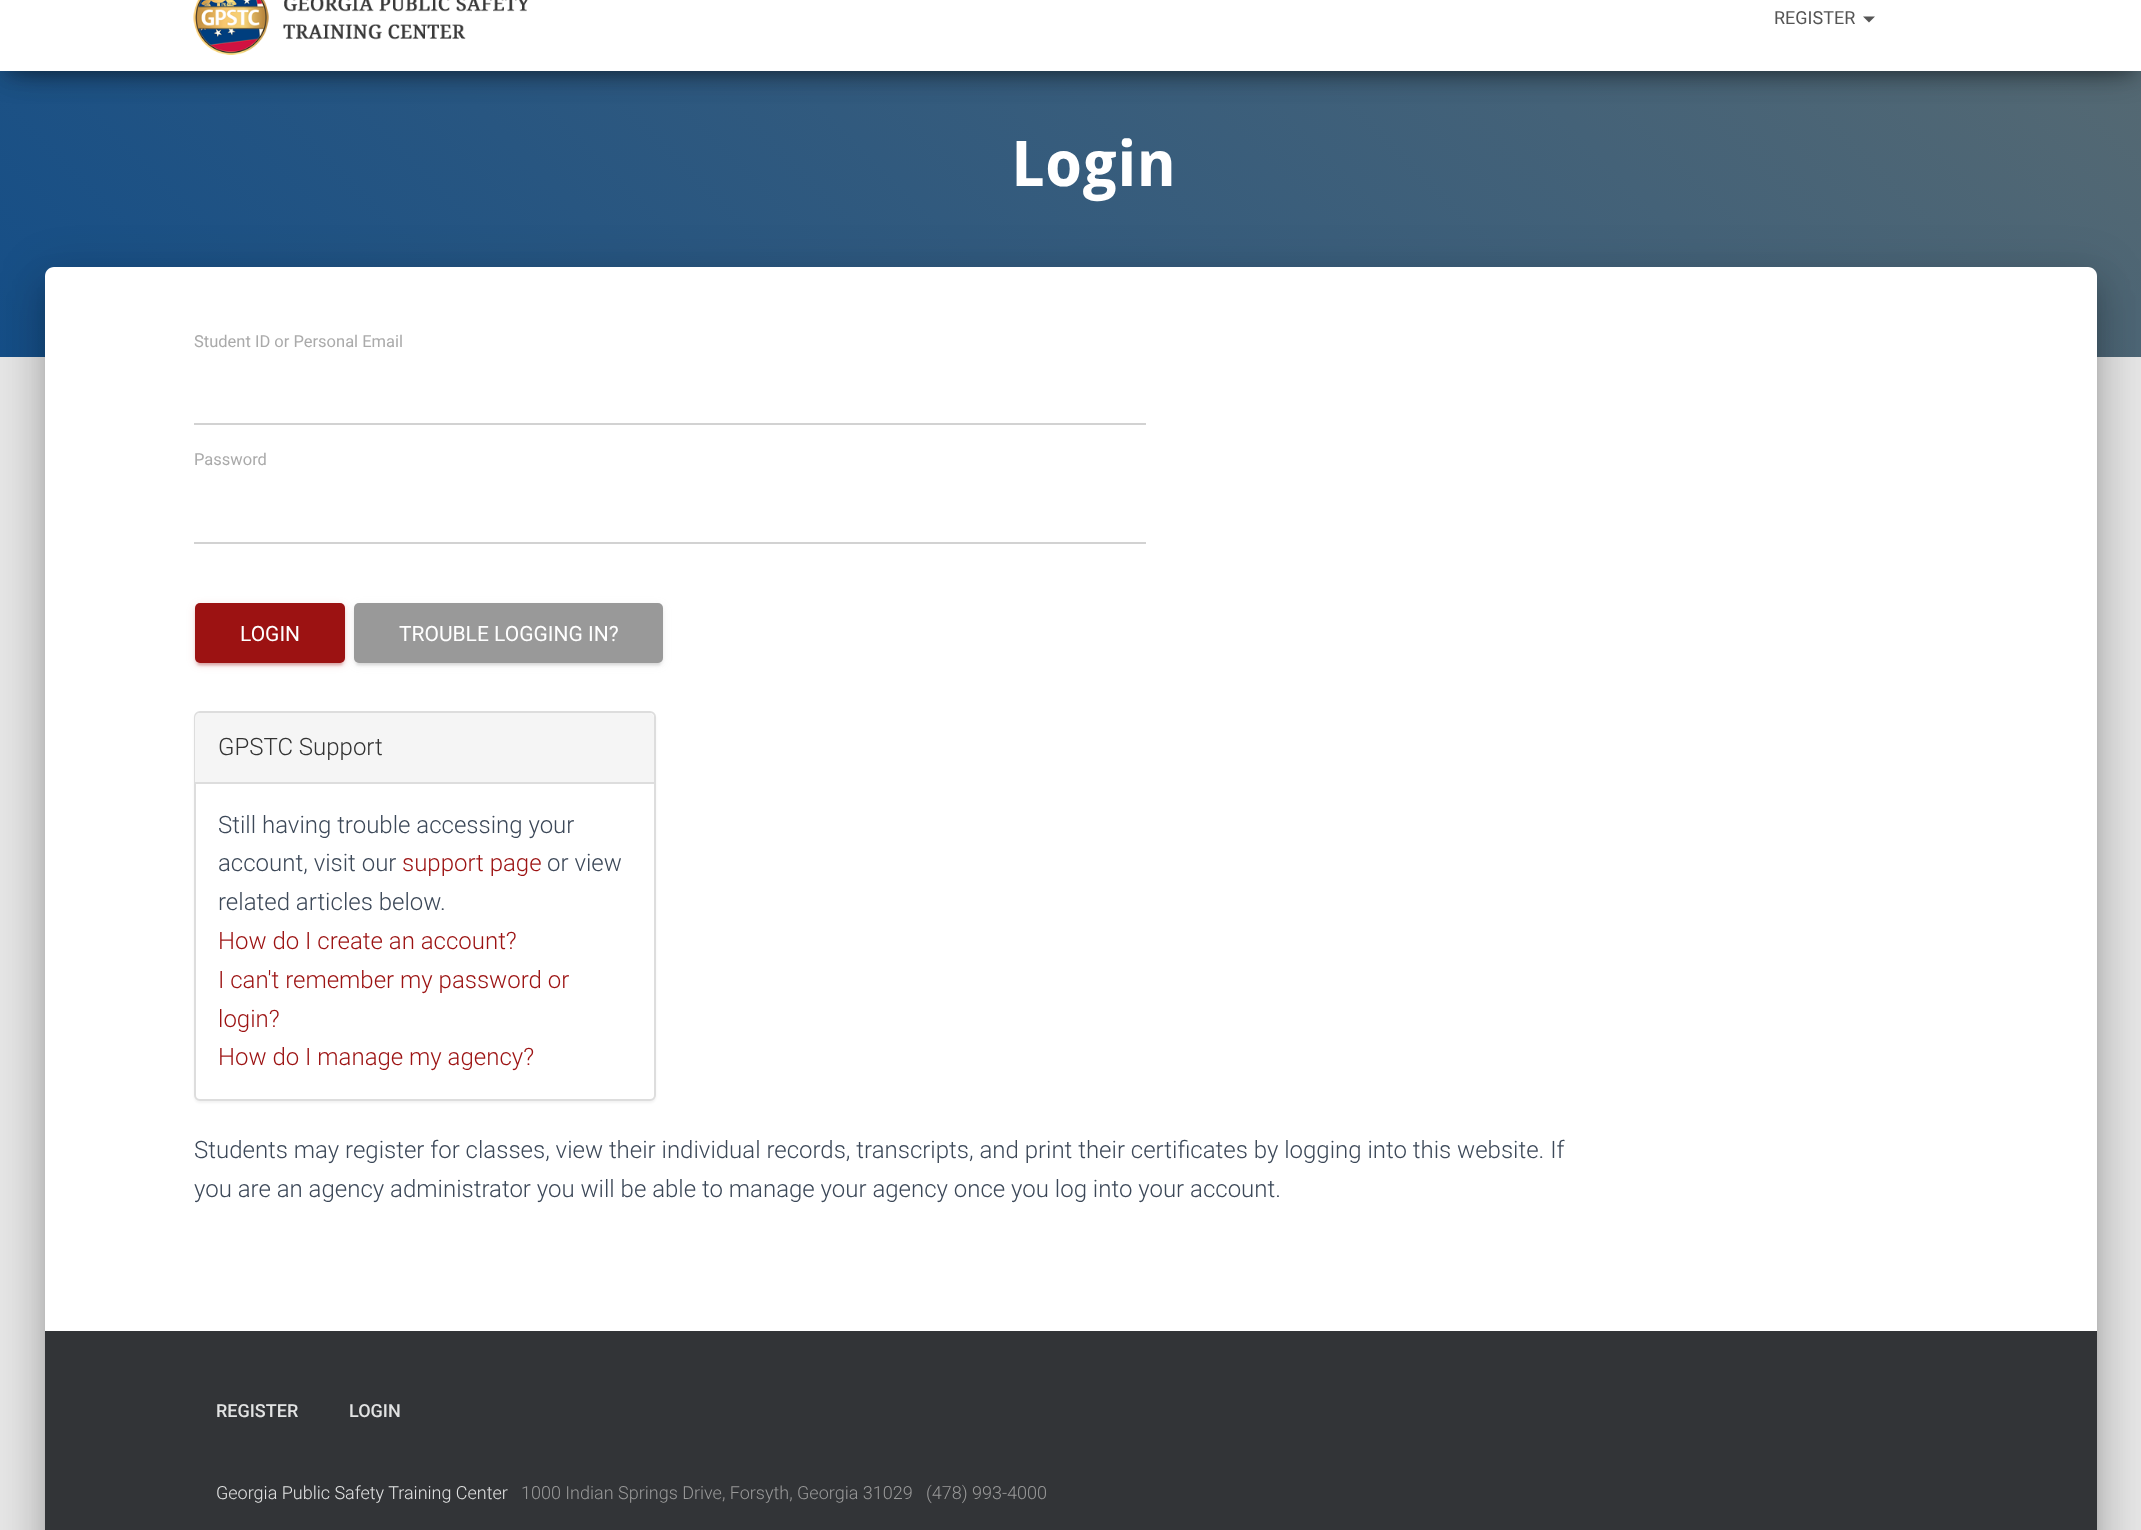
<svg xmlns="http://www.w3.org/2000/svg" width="2141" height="1530">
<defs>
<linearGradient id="g1" gradientUnits="userSpaceOnUse" x1="438" y1="795" x2="1704" y2="-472"><stop offset="0" stop-color="#154e87"/><stop offset="1" stop-color="#576a72"/></linearGradient>
</defs>
<rect width="100%" height="100%" fill="#e5e5e5"/>
<rect y="71" width="2141" height="286" fill="url(#g1)"/>
<rect x="8" y="-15" width="2127" height="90" fill="#00000033" filter="blur(7.5px)"/>
<rect y="-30" width="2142" height="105" fill="#0000001f" filter="blur(15px)"/>
<rect x="18" y="-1" width="2106" height="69" fill="#0000006b" filter="blur(15px)"/>
<rect width="2141" height="71" fill="#fff"/>
<image x="193" y="0" width="335" height="55" href="media/1.png"/>
<text x="1774" y="24" style="font-family:Roboto;font-size:18px;fill:#555">REGISTER</text>
<path d="M1863 16.5h12l-6 6z" fill="#555"/>
<text x="1011" y="186" style="font-family:Droid Sans;font-size:63px;font-weight:bold;fill:#fff">Login</text>
<rect x="53" y="287" width="2037" height="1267" rx="1.5" fill="#00000033" filter="blur(7.5px)"/>
<rect x="38" y="269" width="2067" height="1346" rx="17" fill="#0000001f" filter="blur(22.5px)"/>
<rect x="42" y="288" width="2058" height="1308" rx="12" fill="#00000024" filter="blur(18px)"/>
<path d="M54 267h2034c5 0 9 4 9 9v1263h-2052v-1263c0-5 4-9 9-9z" fill="#fff"/>
<text x="194" y="347" style="font-family:Roboto;font-size:16.5px;fill:#aaa">Student ID or Personal Email</text>
<rect x="194" y="423" width="952" height="2" fill="#d2d2d2"/>
<text x="194" y="465" style="font-family:Roboto;font-size:16.5px;fill:#aaa">Password</text>
<rect x="194" y="542" width="952" height="2" fill="#d2d2d2"/>
<rect x="195" y="605" width="150" height="60" rx="5" fill="#9c12121f" filter="blur(4px)"/>
<rect x="198" y="611" width="144" height="54" rx="1.5" fill="#9c121233" filter="blur(1px)"/>
<rect x="195" y="606" width="150" height="60" rx="5" fill="#9c121224" filter="blur(1.5px)"/>
<rect x="195" y="603" width="150" height="60" rx="5" fill="#9c1212"/>
<text x="240" y="641" style="font-family:Roboto;font-size:21px;fill:#fff">LOGIN</text>
<rect x="354" y="605" width="309" height="60" rx="5" fill="#9999991f" filter="blur(4px)"/>
<rect x="357" y="611" width="303" height="54" rx="1.5" fill="#99999933" filter="blur(1px)"/>
<rect x="354" y="606" width="309" height="60" rx="5" fill="#99999924" filter="blur(1.5px)"/>
<rect x="354" y="603" width="309" height="60" rx="5" fill="#999"/>
<text x="399" y="641" style="font-family:Roboto;font-size:21px;fill:#fff">TROUBLE LOGGING IN?</text>
<rect x="194" y="713" width="462" height="390" rx="6" fill="#0000000d" filter="blur(1px)"/>
<rect x="195" y="712" width="460" height="388" rx="5" fill="#fff" stroke="#ddd" stroke-width="2"/>
<path d="M200 713h449c3 0 5 2 5 5v65h-459v-65c0-3 2-5 5-5z" fill="#f5f5f5"/>
<rect x="195" y="782" width="459" height="2" fill="#ddd"/>
<text x="218" y="755" style="font-family:Roboto;font-size:24px;font-weight:300;fill:#333">GPSTC Support</text>
<text x="218" y="833" style="font-family:Roboto;font-size:24px;font-weight:300;fill:#3c4858">Still having trouble accessing your</text>
<text x="218" y="871" style="font-family:Roboto;font-size:24px;font-weight:300;fill:#3c4858">account, visit our</text>
<text x="402" y="871" style="font-family:Roboto;font-size:24px;font-weight:300;fill:#9c1212">support page</text>
<text x="547" y="871" style="font-family:Roboto;font-size:24px;font-weight:300;fill:#3c4858">or view</text>
<text x="218" y="910" style="font-family:Roboto;font-size:24px;font-weight:300;fill:#3c4858">related articles below.</text>
<text x="218" y="949" style="font-family:Roboto;font-size:24px;font-weight:300;fill:#9c1212">How do I create an account?</text>
<text x="218" y="988" style="font-family:Roboto;font-size:24px;font-weight:300;fill:#9c1212">I can't remember my password or</text>
<text x="218" y="1027" style="font-family:Roboto;font-size:24px;font-weight:300;fill:#9c1212">login?</text>
<text x="218" y="1065" style="font-family:Roboto;font-size:24px;font-weight:300;fill:#9c1212">How do I manage my agency?</text>
<text x="194" y="1158" style="font-family:Roboto;font-size:24px;font-weight:300;fill:#3c4858">Students may register for classes, view their individual records, transcripts, and print their certificates by logging into this website. If</text>
<text x="194" y="1197" style="font-family:Roboto;font-size:24px;font-weight:300;fill:#3c4858">you are an agency administrator you will be able to manage your agency once you log into your account.</text>
<rect x="45" y="1331" width="2052" height="199" fill="#323437"/>
<text x="216" y="1417" style="font-family:Roboto;font-size:18px;font-weight:500;fill:#e2e3e3">REGISTER</text>
<text x="349" y="1417" style="font-family:Roboto;font-size:18px;font-weight:500;fill:#e2e3e3">LOGIN</text>
<text x="216" y="1499" style="font-family:Roboto;font-size:18px;font-weight:300;fill:#e2e3e3">Georgia Public Safety Training Center</text>
<text x="521" y="1499" style="font-family:Roboto;font-size:18px;font-weight:300;fill:#999">1000 Indian Springs Drive, Forsyth, Georgia 31029</text>
<text x="926" y="1499" style="font-family:Roboto;font-size:18px;font-weight:300;fill:#999">(478) 993-4000</text>
</svg>
